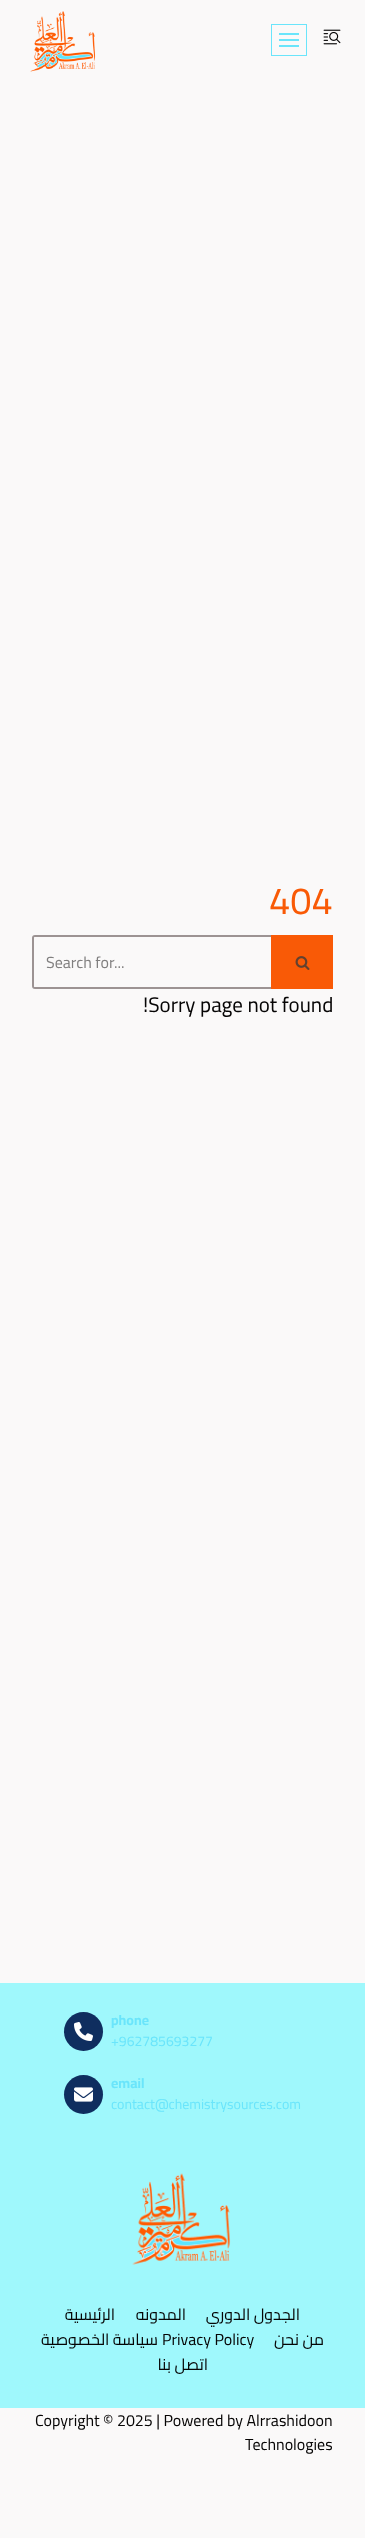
<svg xmlns="http://www.w3.org/2000/svg" width="365" height="2538">
<rect width="100%" height="100%" fill="#faf9f9"/>
<image x="30" y="11" width="66" height="61" href="media/1.png"/>
<rect x="271.5" y="24.5" width="35" height="31" fill="none" stroke="#6ae5fb"/>
<image x="279" y="33" width="20" height="14" href="media/2.png"/>
<image x="323" y="29" width="18" height="16" href="media/3.png"/>
<text x="269" y="914" style="font-family:Cairo;font-size:38px;fill:#f95a06">404</text>
<path d="M35 935h236v54h-236c-2 0-3-1-3-3v-48c0-2 1-3 3-3zm0 2h236v50h-236c-1 0-1 0-1-1v-48c0-1 0-1 1-1z" fill="#9c9393" fill-rule="evenodd"/>
<text x="46" y="968" style="font-family:Cairo;font-size:16px;fill:#807f7f">Search for...</text>
<rect x="271" y="935" width="62" height="54" fill="#f95a06"/>
<image x="295" y="956" width="15" height="14" href="media/4.png"/>
<text x="143" y="1012" style="font-family:Cairo;font-size:21px;fill:#060505">!Sorry page not found</text>
<rect y="1983" width="365" height="425" fill="#9ff8fc"/>
<circle cx="83.5" cy="2031.5" r="19.5" fill="#0f2e5f"/>
<image x="74" y="2022" width="19" height="19" href="media/5.png"/>
<text x="111" y="2025" style="font-family:Cairo;font-size:14px;font-weight:bold;fill:#6ae5fb">phone</text>
<text x="111" y="2046" style="font-family:Cairo;font-size:14px;fill:#6ae5fb">+962785693277</text>
<circle cx="83.5" cy="2094.5" r="19.5" fill="#0f2e5f"/>
<image x="74" y="2087" width="19" height="15" href="media/6.png"/>
<text x="111" y="2088" style="font-family:Cairo;font-size:14px;font-weight:bold;fill:#6ae5fb">email</text>
<text x="111" y="2109" style="font-family:Cairo;font-size:14px;fill:#6ae5fb">contact@chemistrysources.com</text>
<image x="132" y="2173" width="99" height="92" href="media/7.png"/>
<text x="115" y="2320" style="font-family:Cairo;font-size:16px;direction:rtl;fill:#060505">الرئيسية</text>
<text x="186" y="2320" style="font-family:Cairo;font-size:16px;direction:rtl;fill:#060505">المدونه</text>
<text x="300" y="2320" style="font-family:Cairo;font-size:16px;direction:rtl;fill:#060505">الجدول الدوري</text>
<text x="158" y="2345" style="font-family:Cairo;font-size:16px;direction:rtl;fill:#060505">سياسة الخصوصية</text>
<text x="162" y="2345" style="font-family:Cairo;font-size:16px;fill:#060505">Privacy Policy</text>
<text x="324" y="2345" style="font-family:Cairo;font-size:16px;direction:rtl;fill:#060505">من نحن</text>
<text x="208" y="2370" style="font-family:Cairo;font-size:16px;direction:rtl;fill:#060505">اتصل بنا</text>
<text x="35" y="2426" style="font-family:Cairo;font-size:16px;fill:#060505">Copyright © 2025 | Powered by Alrrashidoon</text>
<text x="245" y="2450" style="font-family:Cairo;font-size:16px;fill:#060505">Technologies</text>
</svg>
